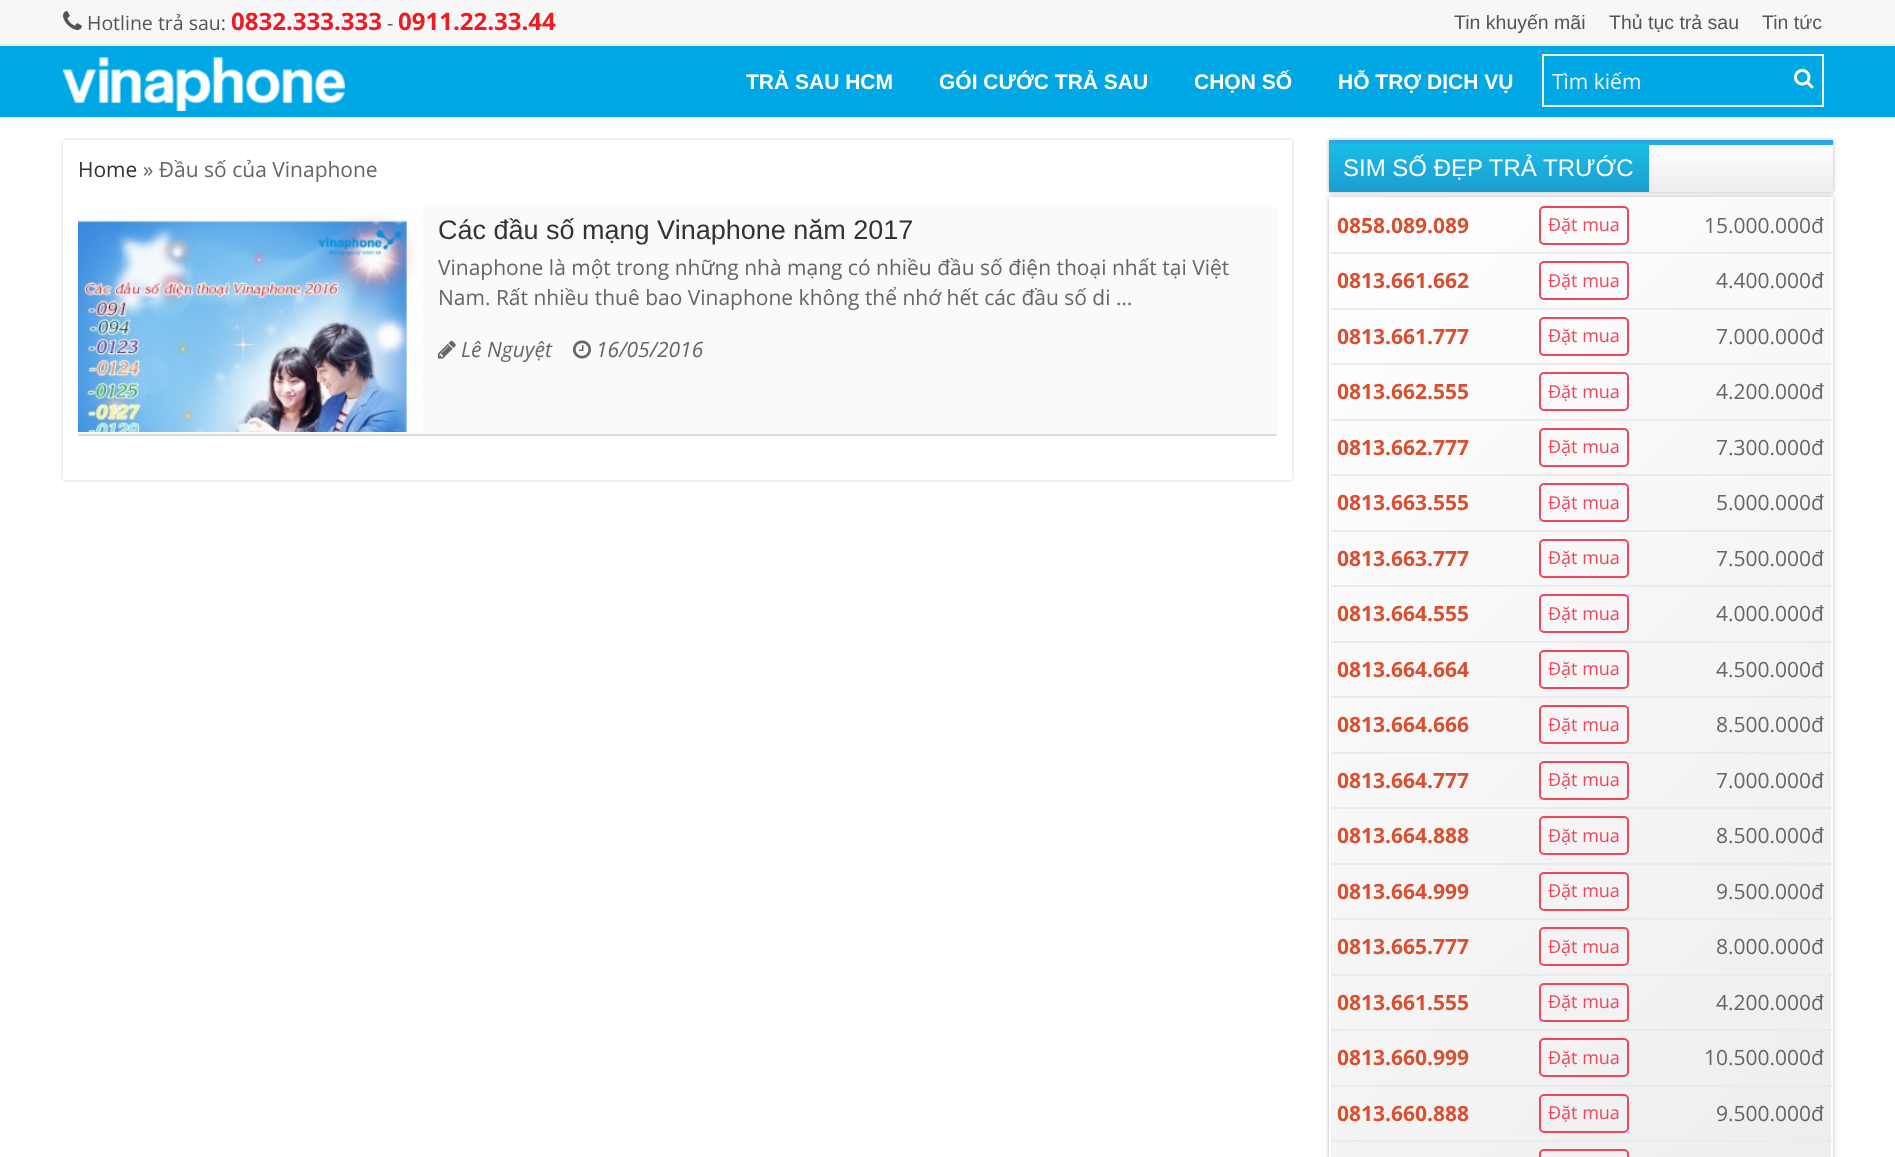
<svg xmlns="http://www.w3.org/2000/svg" width="1895" height="1157">
<defs>
<linearGradient id="g1" gradientUnits="userSpaceOnUse" x1="1581" y1="144" x2="1581" y2="192"><stop offset="0" stop-color="#fff"/><stop offset="0.47" stop-color="#f6f6f6"/><stop offset="1" stop-color="#ededed"/></linearGradient>
<linearGradient id="g2" gradientUnits="userSpaceOnUse" x1="1489" y1="144" x2="1489" y2="192"><stop offset="0" stop-color="#1abde7"/><stop offset="1" stop-color="#1c9dd1"/></linearGradient>
<linearGradient id="g3" gradientUnits="userSpaceOnUse" x1="1040" y1="489" x2="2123" y2="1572"><stop offset="0" stop-color="#fff"/><stop offset="1" stop-color="#e5e5e5"/></linearGradient>
</defs>
<rect width="100%" height="100%" fill="#fff"/>
<rect y="46" width="1895" height="71" fill="#00a7e5"/>
<rect width="1895" height="44" fill="#f7f7f8"/>
<rect y="44" width="1895" height="2" fill="#ebebeb"/>
<image x="63" y="11" width="19" height="19" href="media/1.png"/>
<text x="87" y="30" style="font-family:Open Sans;font-size:19.5px;fill:#555">Hotline trả sau:</text>
<text x="231" y="30" style="font-family:Open Sans;font-size:24px;font-weight:bold;fill:#ec1c23">0832.333.333</text>
<text x="387" y="30" style="font-family:Open Sans;font-size:19.5px;fill:#555">-</text>
<text x="398" y="30" style="font-family:Open Sans;font-size:24px;font-weight:bold;fill:#ec1c23">0911.22.33.44</text>
<text x="1454" y="29" style="font-family:Liberation Sans;font-size:19.5px;fill:#555">Tin khuyến mãi</text>
<text x="1609" y="29" style="font-family:Liberation Sans;font-size:19.5px;fill:#555">Thủ tục trả sau</text>
<text x="1762" y="29" style="font-family:Liberation Sans;font-size:19.5px;fill:#555">Tin tức</text>
<image x="63" y="57" width="282" height="54" href="media/2.png"/>
<text x="746" y="89" style="font-family:Liberation Sans;font-size:21px;font-weight:bold;fill:#fff">TRẢ SAU HCM</text>
<text x="939" y="89" style="font-family:Liberation Sans;font-size:21px;font-weight:bold;fill:#fff">GÓI CƯỚC TRẢ SAU</text>
<text x="1194" y="89" style="font-family:Liberation Sans;font-size:21px;font-weight:bold;fill:#fff">CHỌN SỐ</text>
<text x="1338" y="89" style="font-family:Liberation Sans;font-size:21px;font-weight:bold;fill:#fff">HỖ TRỢ DỊCH VỤ</text>
<rect x="1543" y="55" width="280" height="51" fill="none" stroke="#f0f0f0" stroke-width="2"/>
<text x="1552" y="89" style="font-family:Open Sans;font-size:21px;fill:#f0f0f0">Tìm kiếm</text>
<image x="1794" y="69" width="20" height="20" href="media/3.png"/>
<rect x="63" y="140" width="1229" height="340" fill="#00000033" filter="blur(1.5px)"/>
<rect x="63" y="140" width="1229" height="340" fill="#fff"/>
<text x="78" y="177" style="font-family:Open Sans;font-size:21px;fill:#333">Home</text>
<text x="143" y="177" style="font-family:Open Sans;font-size:21px;fill:#666">» Đầu số của Vinaphone</text>
<rect x="78" y="207" width="1199" height="227" fill="#fafafa"/>
<rect x="78" y="434" width="1199" height="2" fill="#ddd"/>
<image x="78" y="207" width="345" height="225" href="media/4.png"/>
<text x="438" y="239" style="font-family:Liberation Sans;font-size:27px;fill:#333">Các đầu số mạng Vinaphone năm 2017</text>
<text x="438" y="275" style="font-family:Open Sans;font-size:21px;fill:#666">Vinaphone là một trong những nhà mạng có nhiều đầu số điện thoại nhất tại Việt</text>
<text x="438" y="305" style="font-family:Open Sans;font-size:21px;fill:#666">Nam. Rất nhiều thuê bao Vinaphone không thể nhớ hết các đầu số di …</text>
<image x="438" y="340" width="18" height="19" href="media/5.png"/>
<text x="461" y="357" style="font-family:Open Sans;font-size:21px;font-style:italic;fill:#666">Lê Nguyệt</text>
<image x="573" y="340" width="18" height="19" href="media/6.png"/>
<text x="596" y="357" style="font-family:Open Sans;font-size:21px;font-style:italic;fill:#666">16/05/2016</text>
<rect x="1329" y="140" width="504" height="52" fill="#0000004d" filter="blur(2px)"/>
<rect x="1649" y="145" width="184" height="47" fill="url(#g1)"/>
<rect x="1329" y="140" width="504" height="5" fill="#27a9e9"/>
<rect x="1329" y="197" width="504" height="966" fill="#0000004d" filter="blur(2px)"/>
<rect x="1329" y="144" width="320" height="48" fill="url(#g2)"/>
<text x="1343" y="176" style="font-family:Liberation Sans;font-size:24px;fill:#fff">SIM SỐ ĐẸP TRẢ TRƯỚC</text>
<rect x="1331" y="199" width="500" height="958" fill="url(#g3)"/>
<rect x="1330" y="198" width="502" height="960" fill="none" stroke="#fff" stroke-width="2"/>
<rect x="1331" y="252" width="501" height="2" fill="#ebebeb"/>
<text x="1337" y="233" style="font-family:Open Sans;font-size:21px;font-weight:bold;fill:#d85030">0858.089.089</text>
<rect x="1540" y="207" width="88" height="37" rx="4" fill="none" stroke="#ee465a" stroke-width="2"/>
<text x="1548" y="231" style="font-family:Open Sans;font-size:18px;fill:#ee465a">Đặt mua</text>
<text x="1704" y="233" style="font-family:Open Sans;font-size:21px;fill:#666">15.000.000đ</text>
<rect x="1331" y="308" width="501" height="2" fill="#ebebeb"/>
<text x="1337" y="288" style="font-family:Open Sans;font-size:21px;font-weight:bold;fill:#d85030">0813.661.662</text>
<rect x="1540" y="262" width="88" height="37" rx="4" fill="none" stroke="#ee465a" stroke-width="2"/>
<text x="1548" y="287" style="font-family:Open Sans;font-size:18px;fill:#ee465a">Đặt mua</text>
<text x="1716" y="288" style="font-family:Open Sans;font-size:21px;fill:#666">4.400.000đ</text>
<rect x="1331" y="363" width="501" height="2" fill="#ebebeb"/>
<text x="1337" y="344" style="font-family:Open Sans;font-size:21px;font-weight:bold;fill:#d85030">0813.661.777</text>
<rect x="1540" y="318" width="88" height="37" rx="4" fill="none" stroke="#ee465a" stroke-width="2"/>
<text x="1548" y="342" style="font-family:Open Sans;font-size:18px;fill:#ee465a">Đặt mua</text>
<text x="1716" y="344" style="font-family:Open Sans;font-size:21px;fill:#666">7.000.000đ</text>
<rect x="1331" y="419" width="501" height="2" fill="#ebebeb"/>
<text x="1337" y="399" style="font-family:Open Sans;font-size:21px;font-weight:bold;fill:#d85030">0813.662.555</text>
<rect x="1540" y="373" width="88" height="37" rx="4" fill="none" stroke="#ee465a" stroke-width="2"/>
<text x="1548" y="398" style="font-family:Open Sans;font-size:18px;fill:#ee465a">Đặt mua</text>
<text x="1716" y="399" style="font-family:Open Sans;font-size:21px;fill:#666">4.200.000đ</text>
<rect x="1331" y="474" width="501" height="2" fill="#ebebeb"/>
<text x="1337" y="455" style="font-family:Open Sans;font-size:21px;font-weight:bold;fill:#d85030">0813.662.777</text>
<rect x="1540" y="429" width="88" height="37" rx="4" fill="none" stroke="#ee465a" stroke-width="2"/>
<text x="1548" y="453" style="font-family:Open Sans;font-size:18px;fill:#ee465a">Đặt mua</text>
<text x="1716" y="455" style="font-family:Open Sans;font-size:21px;fill:#666">7.300.000đ</text>
<rect x="1331" y="530" width="501" height="2" fill="#ebebeb"/>
<text x="1337" y="510" style="font-family:Open Sans;font-size:21px;font-weight:bold;fill:#d85030">0813.663.555</text>
<rect x="1540" y="484" width="88" height="37" rx="4" fill="none" stroke="#ee465a" stroke-width="2"/>
<text x="1548" y="509" style="font-family:Open Sans;font-size:18px;fill:#ee465a">Đặt mua</text>
<text x="1716" y="510" style="font-family:Open Sans;font-size:21px;fill:#666">5.000.000đ</text>
<rect x="1331" y="585" width="501" height="2" fill="#ebebeb"/>
<text x="1337" y="566" style="font-family:Open Sans;font-size:21px;font-weight:bold;fill:#d85030">0813.663.777</text>
<rect x="1540" y="540" width="88" height="37" rx="4" fill="none" stroke="#ee465a" stroke-width="2"/>
<text x="1548" y="564" style="font-family:Open Sans;font-size:18px;fill:#ee465a">Đặt mua</text>
<text x="1716" y="566" style="font-family:Open Sans;font-size:21px;fill:#666">7.500.000đ</text>
<rect x="1331" y="641" width="501" height="2" fill="#ebebeb"/>
<text x="1337" y="621" style="font-family:Open Sans;font-size:21px;font-weight:bold;fill:#d85030">0813.664.555</text>
<rect x="1540" y="595" width="88" height="37" rx="4" fill="none" stroke="#ee465a" stroke-width="2"/>
<text x="1548" y="620" style="font-family:Open Sans;font-size:18px;fill:#ee465a">Đặt mua</text>
<text x="1716" y="621" style="font-family:Open Sans;font-size:21px;fill:#666">4.000.000đ</text>
<rect x="1331" y="696" width="501" height="2" fill="#ebebeb"/>
<text x="1337" y="677" style="font-family:Open Sans;font-size:21px;font-weight:bold;fill:#d85030">0813.664.664</text>
<rect x="1540" y="651" width="88" height="37" rx="4" fill="none" stroke="#ee465a" stroke-width="2"/>
<text x="1548" y="675" style="font-family:Open Sans;font-size:18px;fill:#ee465a">Đặt mua</text>
<text x="1716" y="677" style="font-family:Open Sans;font-size:21px;fill:#666">4.500.000đ</text>
<rect x="1331" y="752" width="501" height="2" fill="#ebebeb"/>
<text x="1337" y="732" style="font-family:Open Sans;font-size:21px;font-weight:bold;fill:#d85030">0813.664.666</text>
<rect x="1540" y="706" width="88" height="37" rx="4" fill="none" stroke="#ee465a" stroke-width="2"/>
<text x="1548" y="731" style="font-family:Open Sans;font-size:18px;fill:#ee465a">Đặt mua</text>
<text x="1716" y="732" style="font-family:Open Sans;font-size:21px;fill:#666">8.500.000đ</text>
<rect x="1331" y="807" width="501" height="2" fill="#ebebeb"/>
<text x="1337" y="788" style="font-family:Open Sans;font-size:21px;font-weight:bold;fill:#d85030">0813.664.777</text>
<rect x="1540" y="762" width="88" height="37" rx="4" fill="none" stroke="#ee465a" stroke-width="2"/>
<text x="1548" y="786" style="font-family:Open Sans;font-size:18px;fill:#ee465a">Đặt mua</text>
<text x="1716" y="788" style="font-family:Open Sans;font-size:21px;fill:#666">7.000.000đ</text>
<rect x="1331" y="863" width="501" height="2" fill="#ebebeb"/>
<text x="1337" y="843" style="font-family:Open Sans;font-size:21px;font-weight:bold;fill:#d85030">0813.664.888</text>
<rect x="1540" y="817" width="88" height="37" rx="4" fill="none" stroke="#ee465a" stroke-width="2"/>
<text x="1548" y="842" style="font-family:Open Sans;font-size:18px;fill:#ee465a">Đặt mua</text>
<text x="1716" y="843" style="font-family:Open Sans;font-size:21px;fill:#666">8.500.000đ</text>
<rect x="1331" y="918" width="501" height="2" fill="#ebebeb"/>
<text x="1337" y="899" style="font-family:Open Sans;font-size:21px;font-weight:bold;fill:#d85030">0813.664.999</text>
<rect x="1540" y="873" width="88" height="37" rx="4" fill="none" stroke="#ee465a" stroke-width="2"/>
<text x="1548" y="897" style="font-family:Open Sans;font-size:18px;fill:#ee465a">Đặt mua</text>
<text x="1716" y="899" style="font-family:Open Sans;font-size:21px;fill:#666">9.500.000đ</text>
<rect x="1331" y="974" width="501" height="2" fill="#ebebeb"/>
<text x="1337" y="954" style="font-family:Open Sans;font-size:21px;font-weight:bold;fill:#d85030">0813.665.777</text>
<rect x="1540" y="928" width="88" height="37" rx="4" fill="none" stroke="#ee465a" stroke-width="2"/>
<text x="1548" y="953" style="font-family:Open Sans;font-size:18px;fill:#ee465a">Đặt mua</text>
<text x="1716" y="954" style="font-family:Open Sans;font-size:21px;fill:#666">8.000.000đ</text>
<rect x="1331" y="1029" width="501" height="2" fill="#ebebeb"/>
<text x="1337" y="1010" style="font-family:Open Sans;font-size:21px;font-weight:bold;fill:#d85030">0813.661.555</text>
<rect x="1540" y="984" width="88" height="37" rx="4" fill="none" stroke="#ee465a" stroke-width="2"/>
<text x="1548" y="1008" style="font-family:Open Sans;font-size:18px;fill:#ee465a">Đặt mua</text>
<text x="1716" y="1010" style="font-family:Open Sans;font-size:21px;fill:#666">4.200.000đ</text>
<rect x="1331" y="1085" width="501" height="2" fill="#ebebeb"/>
<text x="1337" y="1065" style="font-family:Open Sans;font-size:21px;font-weight:bold;fill:#d85030">0813.660.999</text>
<rect x="1540" y="1039" width="88" height="37" rx="4" fill="none" stroke="#ee465a" stroke-width="2"/>
<text x="1548" y="1064" style="font-family:Open Sans;font-size:18px;fill:#ee465a">Đặt mua</text>
<text x="1704" y="1065" style="font-family:Open Sans;font-size:21px;fill:#666">10.500.000đ</text>
<rect x="1331" y="1140" width="501" height="2" fill="#ebebeb"/>
<text x="1337" y="1121" style="font-family:Open Sans;font-size:21px;font-weight:bold;fill:#d85030">0813.660.888</text>
<rect x="1540" y="1095" width="88" height="37" rx="4" fill="none" stroke="#ee465a" stroke-width="2"/>
<text x="1548" y="1119" style="font-family:Open Sans;font-size:18px;fill:#ee465a">Đặt mua</text>
<text x="1716" y="1121" style="font-family:Open Sans;font-size:21px;fill:#666">9.500.000đ</text>
<rect x="1540" y="1150" width="88" height="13" rx="4" fill="none" stroke="#ee465a" stroke-width="2"/>
</svg>
